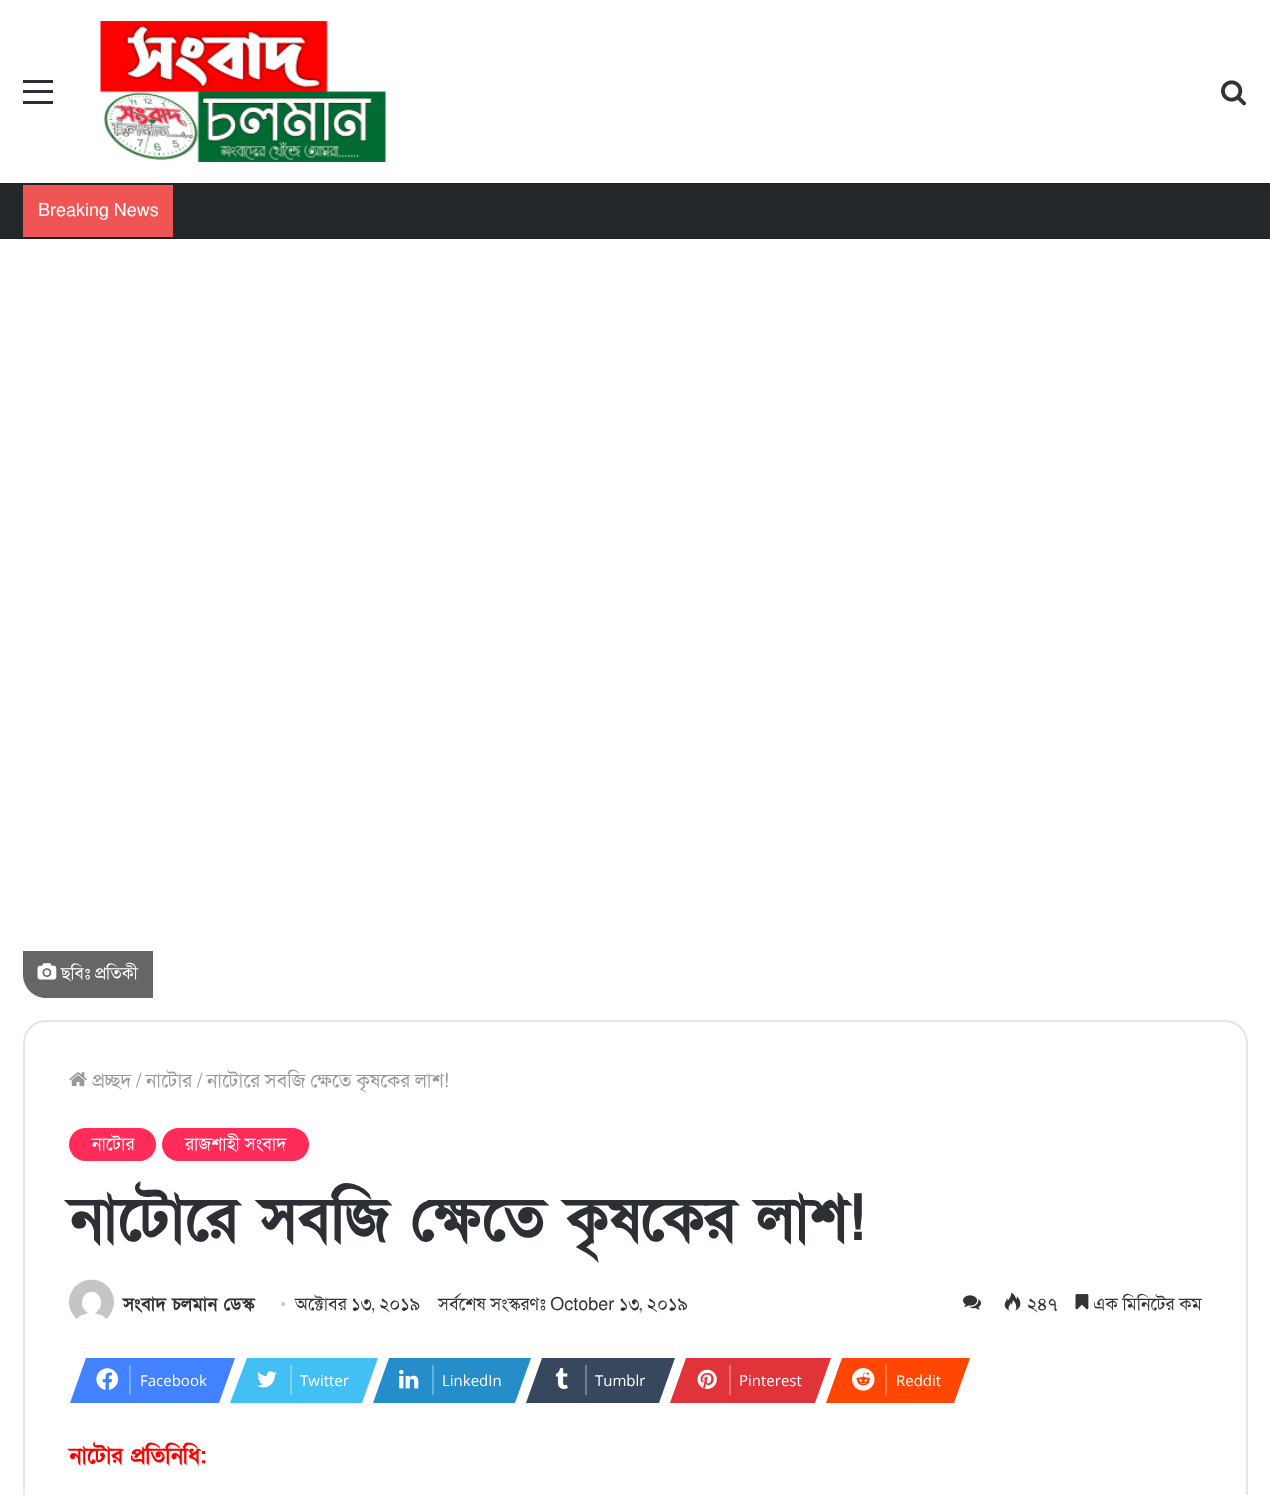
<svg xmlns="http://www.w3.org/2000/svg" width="1270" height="1495">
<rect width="100%" height="100%" fill="#fff"/>
<rect x="23" y="90" width="30" height="3" fill="#2c2f34"/>
<rect x="23" y="80" width="30" height="3" fill="#2c2f34"/>
<rect x="23" y="101" width="30" height="3" fill="#2c2f34"/>
<image x="100" y="21" width="286" height="141" href="media/1.png"/>
<image x="1221" y="80" width="26" height="26" href="media/2.png"/>
<rect y="185" width="1270" height="52" fill="#25282b"/>
<rect y="183" width="1270" height="2" fill="#212427"/>
<rect y="237" width="1270" height="2" fill="#212427"/>
<rect x="23" y="185" width="150" height="52" fill="#f05555"/>
<text x="38" y="216" style="font-family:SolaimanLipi;font-size:18px;fill:#fff">Breaking News</text>
<path d="M23 951h130v47h-107c-12.5 0-23-10.5-23-23z" fill="#666"/>
<image x="37" y="963" width="20" height="17" href="media/3.png"/>
<text x="61" y="979" style="font-family:SolaimanLipi;font-size:17.5px;fill:#fff">ছবিঃ প্রতিকী</text>
<rect x="24" y="1021" width="1223" height="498" rx="22" fill="none" stroke="#e6e6e6" stroke-width="2"/>
<image x="69" y="1072" width="18" height="15" href="media/4.png"/>
<text x="92" y="1087" style="font-family:SolaimanLipi;font-size:19.5px;fill:#999">প্রচ্ছদ</text>
<text x="136" y="1087" style="font-family:SolaimanLipi;font-size:19.5px;fill:#999">/</text>
<text x="146" y="1087" style="font-family:SolaimanLipi;font-size:19.5px;fill:#999">নাটোর</text>
<text x="197" y="1087" style="font-family:SolaimanLipi;font-size:19.5px;fill:#999">/</text>
<text x="207" y="1087" style="font-family:SolaimanLipi;font-size:19.5px;fill:#999">নাটোরে সবজি ক্ষেতে কৃষকের লাশ!</text>
<rect x="69" y="1128" width="87" height="33" rx="16.5" fill="#ff2b58"/>
<text x="92" y="1150" style="font-family:SolaimanLipi;font-size:18px;fill:#fff">নাটোর</text>
<rect x="162" y="1128" width="147" height="33" rx="16.5" fill="#ff2b58"/>
<text x="185" y="1150" style="font-family:SolaimanLipi;font-size:18px;fill:#fff">রাজশাহী সংবাদ</text>
<text x="69" y="1239" style="font-family:SolaimanLipi;font-size:61.5px;font-weight:bold;fill:#2c2f34">নাটোরে সবজি ক্ষেতে কৃষকের লাশ!</text>
<image x="69" y="1279" width="45" height="40" href="media/5.png"/>
<text x="123" y="1310" style="font-family:SolaimanLipi;font-size:18px;font-weight:bold;fill:#333">সংবাদ চলমান ডেস্ক</text>
<text x="280" y="1310" style="font-family:Liberation Serif;font-size:18px;fill:#ccc">•</text>
<text x="295" y="1310" style="font-family:SolaimanLipi;font-size:18px;fill:#333">অক্টোবর ১৩, ২০১৯</text>
<text x="438" y="1310" style="font-family:SolaimanLipi;font-size:18px;fill:#333">সর্বশেষ সংস্করণঃ October ১৩, ২০১৯</text>
<image x="963" y="1295" width="18" height="15" href="media/6.png"/>
<image x="1004" y="1292" width="17" height="19" href="media/7.png"/>
<text x="1027" y="1310" style="font-family:SolaimanLipi;font-size:18px;fill:#333">২৪৭</text>
<image x="1075" y="1294" width="14" height="16" href="media/8.png"/>
<text x="1093" y="1310" style="font-family:SolaimanLipi;font-size:18px;fill:#333">এক মিনিটের কম</text>
<path d="M86 1358h149l-16 45h-149z" fill="#4281ff"/>
<image x="96" y="1368" width="23" height="22" href="media/9.png"/>
<rect x="129" y="1365" width="2" height="30" fill="#7ba7ff"/>
<text x="140" y="1386" style="font-family:Open Sans;font-size:15px;fill:#fff">Facebook</text>
<path d="M247 1358h131l-16 45h-132z" fill="#42c0f5"/>
<image x="257" y="1371" width="20" height="17" href="media/10.png"/>
<rect x="290" y="1365" width="2" height="30" fill="#7bd3f8"/>
<text x="300" y="1386" style="font-family:Open Sans;font-size:15px;fill:#fff">Twitter</text>
<path d="M389 1358h142l-16 45h-142z" fill="#258dc9"/>
<image x="399" y="1370" width="20" height="19" href="media/11.png"/>
<rect x="432" y="1365" width="2" height="30" fill="#66afd9"/>
<text x="442" y="1386" style="font-family:Open Sans;font-size:15px;fill:#fff">LinkedIn</text>
<path d="M542 1358h133l-16 45h-133z" fill="#37485e"/>
<image x="555" y="1368" width="13" height="21" href="media/12.png"/>
<rect x="585" y="1365" width="2" height="30" fill="#737f8e"/>
<text x="595" y="1386" style="font-family:Open Sans;font-size:15px;fill:#fff">Tumblr</text>
<path d="M686 1358h145l-16 45h-145z" fill="#e1333a"/>
<image x="697" y="1369" width="20" height="20" href="media/13.png"/>
<rect x="729" y="1365" width="2" height="30" fill="#ea7075"/>
<text x="739" y="1386" style="font-family:Open Sans;font-size:15px;fill:#fff">Pinterest</text>
<path d="M842 1358h128l-16 45h-128z" fill="#ff4703"/>
<image x="852" y="1368" width="23" height="23" href="media/14.png"/>
<rect x="885" y="1365" width="2" height="30" fill="#ff7e4f"/>
<text x="896" y="1386" style="font-family:Open Sans;font-size:15px;fill:#fff">Reddit</text>
<text x="69" y="1463" style="font-family:SolaimanLipi;font-size:22.5px;font-weight:bold;fill:#f00">নাটোর প্রতিনিধি:</text>
</svg>
